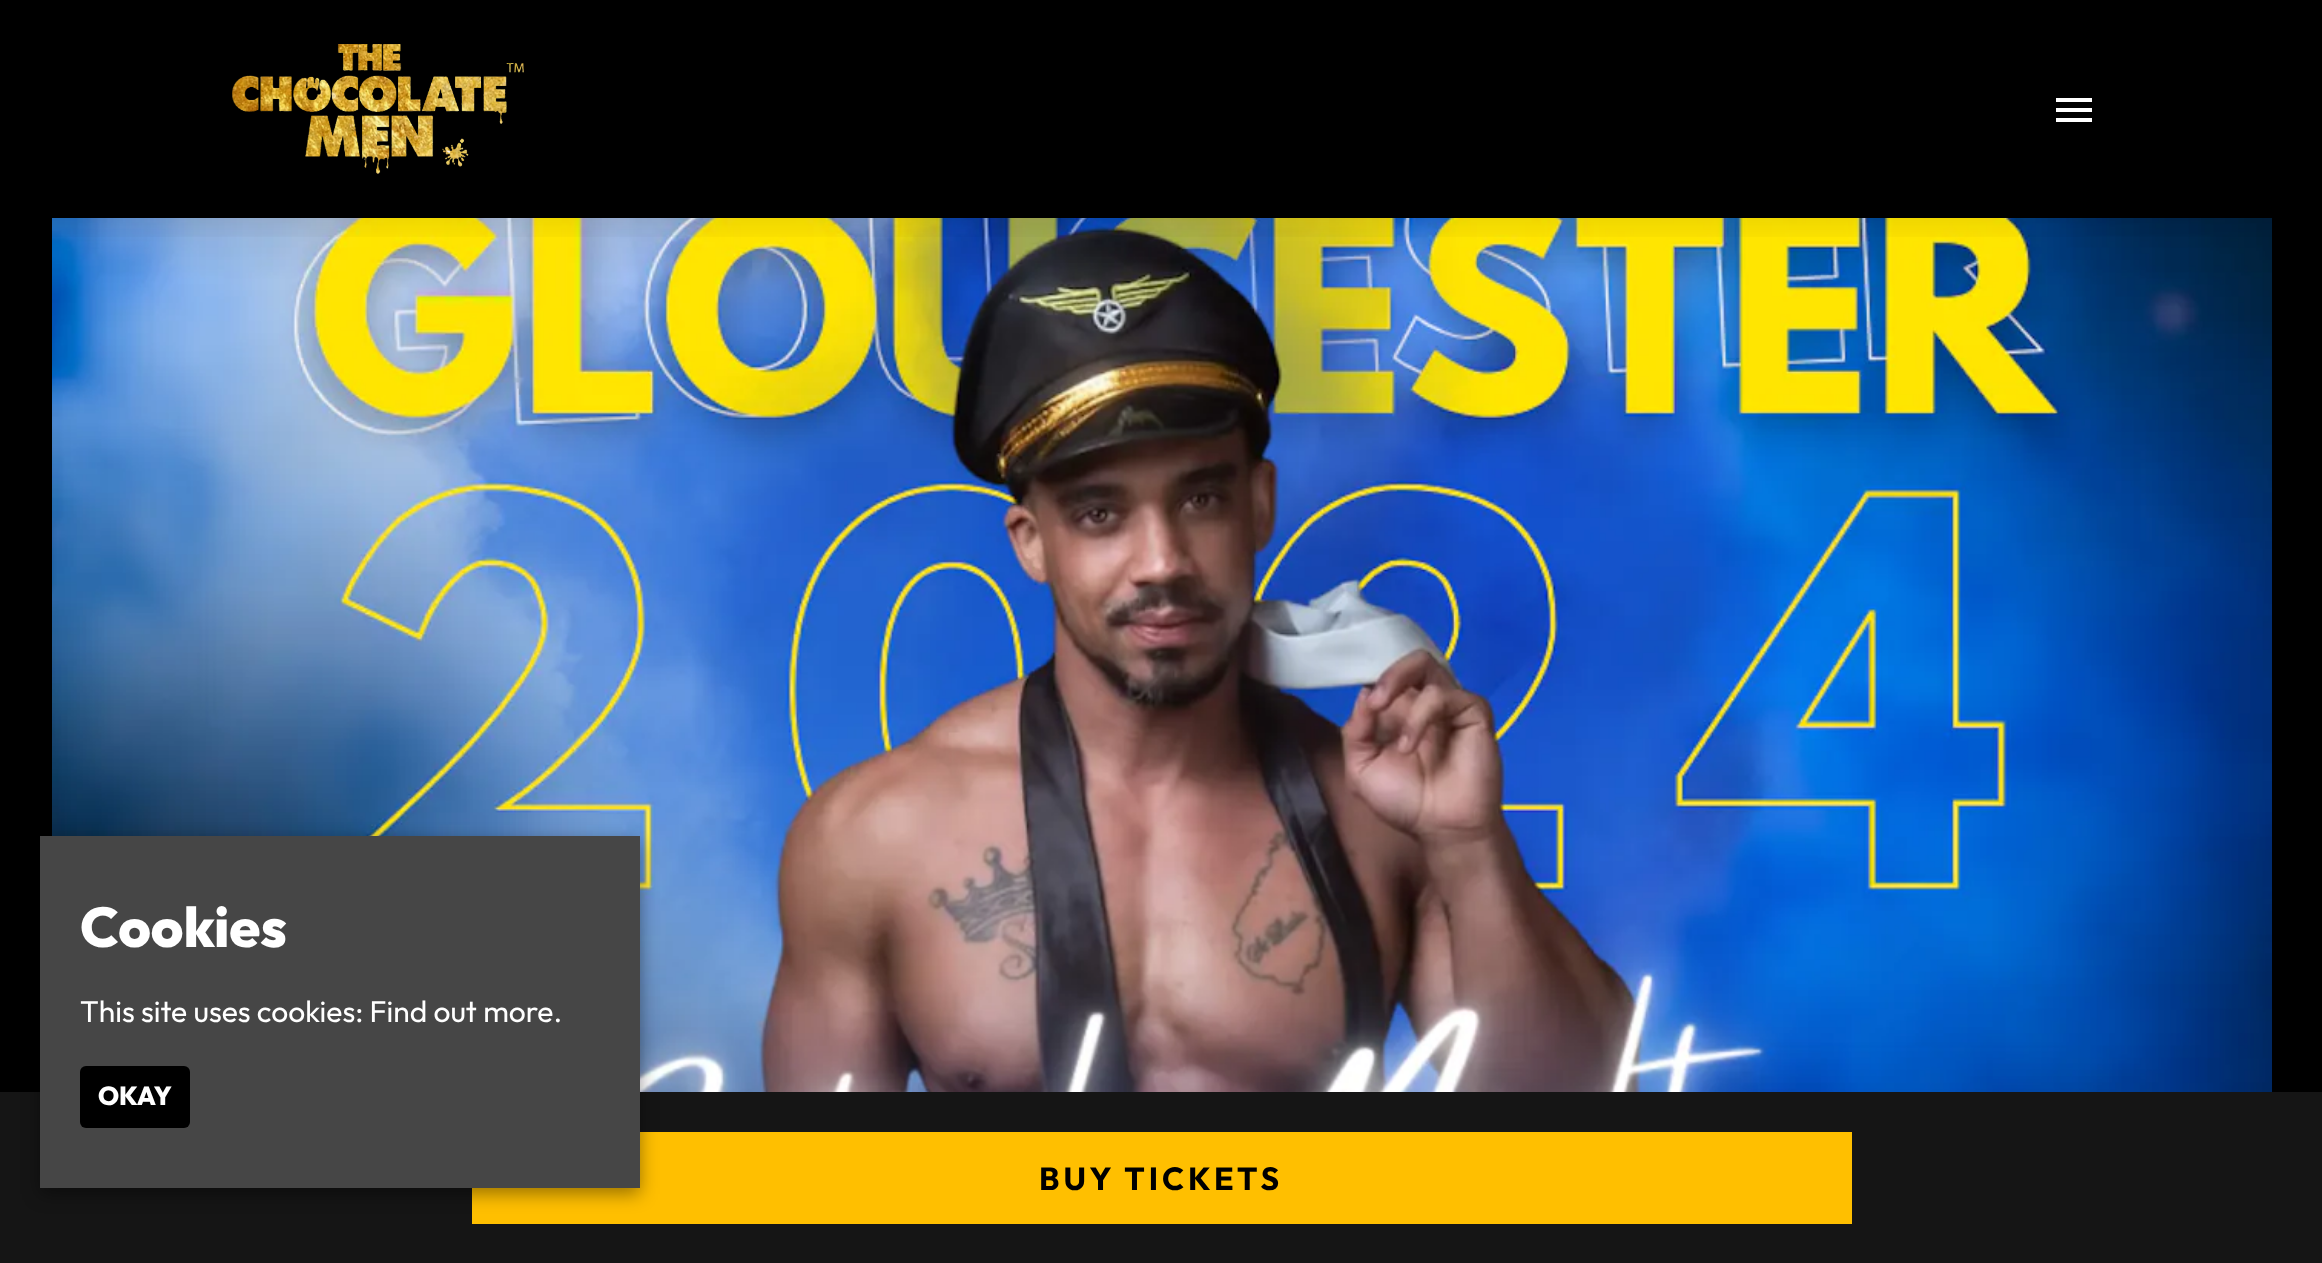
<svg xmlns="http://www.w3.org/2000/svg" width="2322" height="1263">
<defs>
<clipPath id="clip1"><rect x="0" y="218" width="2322" height="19"/></clipPath>
</defs>
<rect width="100%" height="100%" fill="#000"/>
<image x="52" y="218" width="2220" height="874" href="media/2.png"/>
<g clip-path="url(#clip1)">
<rect width="2322" height="218" fill="#0000001f" filter="blur(20px)"/>
</g>
<image x="232" y="44" width="292" height="130" href="media/1.png"/>
<rect x="2056" y="98" width="36" height="4" fill="#fff"/>
<rect x="2056" y="108" width="36" height="4" fill="#fff"/>
<rect x="2056" y="118" width="36" height="4" fill="#fff"/>
<rect y="1092" width="2322" height="171" fill="#151515"/>
<rect x="472" y="1132" width="1380" height="92" fill="#ffbf00"/>
<rect x="40" y="842" width="600" height="352" fill="#00000066" filter="blur(9px)"/>
<rect x="40" y="836" width="600" height="352" fill="#464646"/>
<text x="80" y="947" style="font-family:Outfit;font-size:56px;font-weight:800;fill:#fff">Cookies</text>
<text x="80" y="1022" style="font-family:Outfit;font-size:30px;fill:#fff">This site uses cookies: Find out more.</text>
<rect x="80" y="1066" width="110" height="62" rx="6" fill="#000"/>
<text x="98" y="1105" style="font-family:Outfit;font-size:26px;font-weight:800;fill:#fff">OKAY</text>
<text x="1039" y="1190" style="font-family:Outfit;font-size:32px;font-weight:bold;letter-spacing:4px;fill:#000">BUY TICKETS</text>
</svg>
